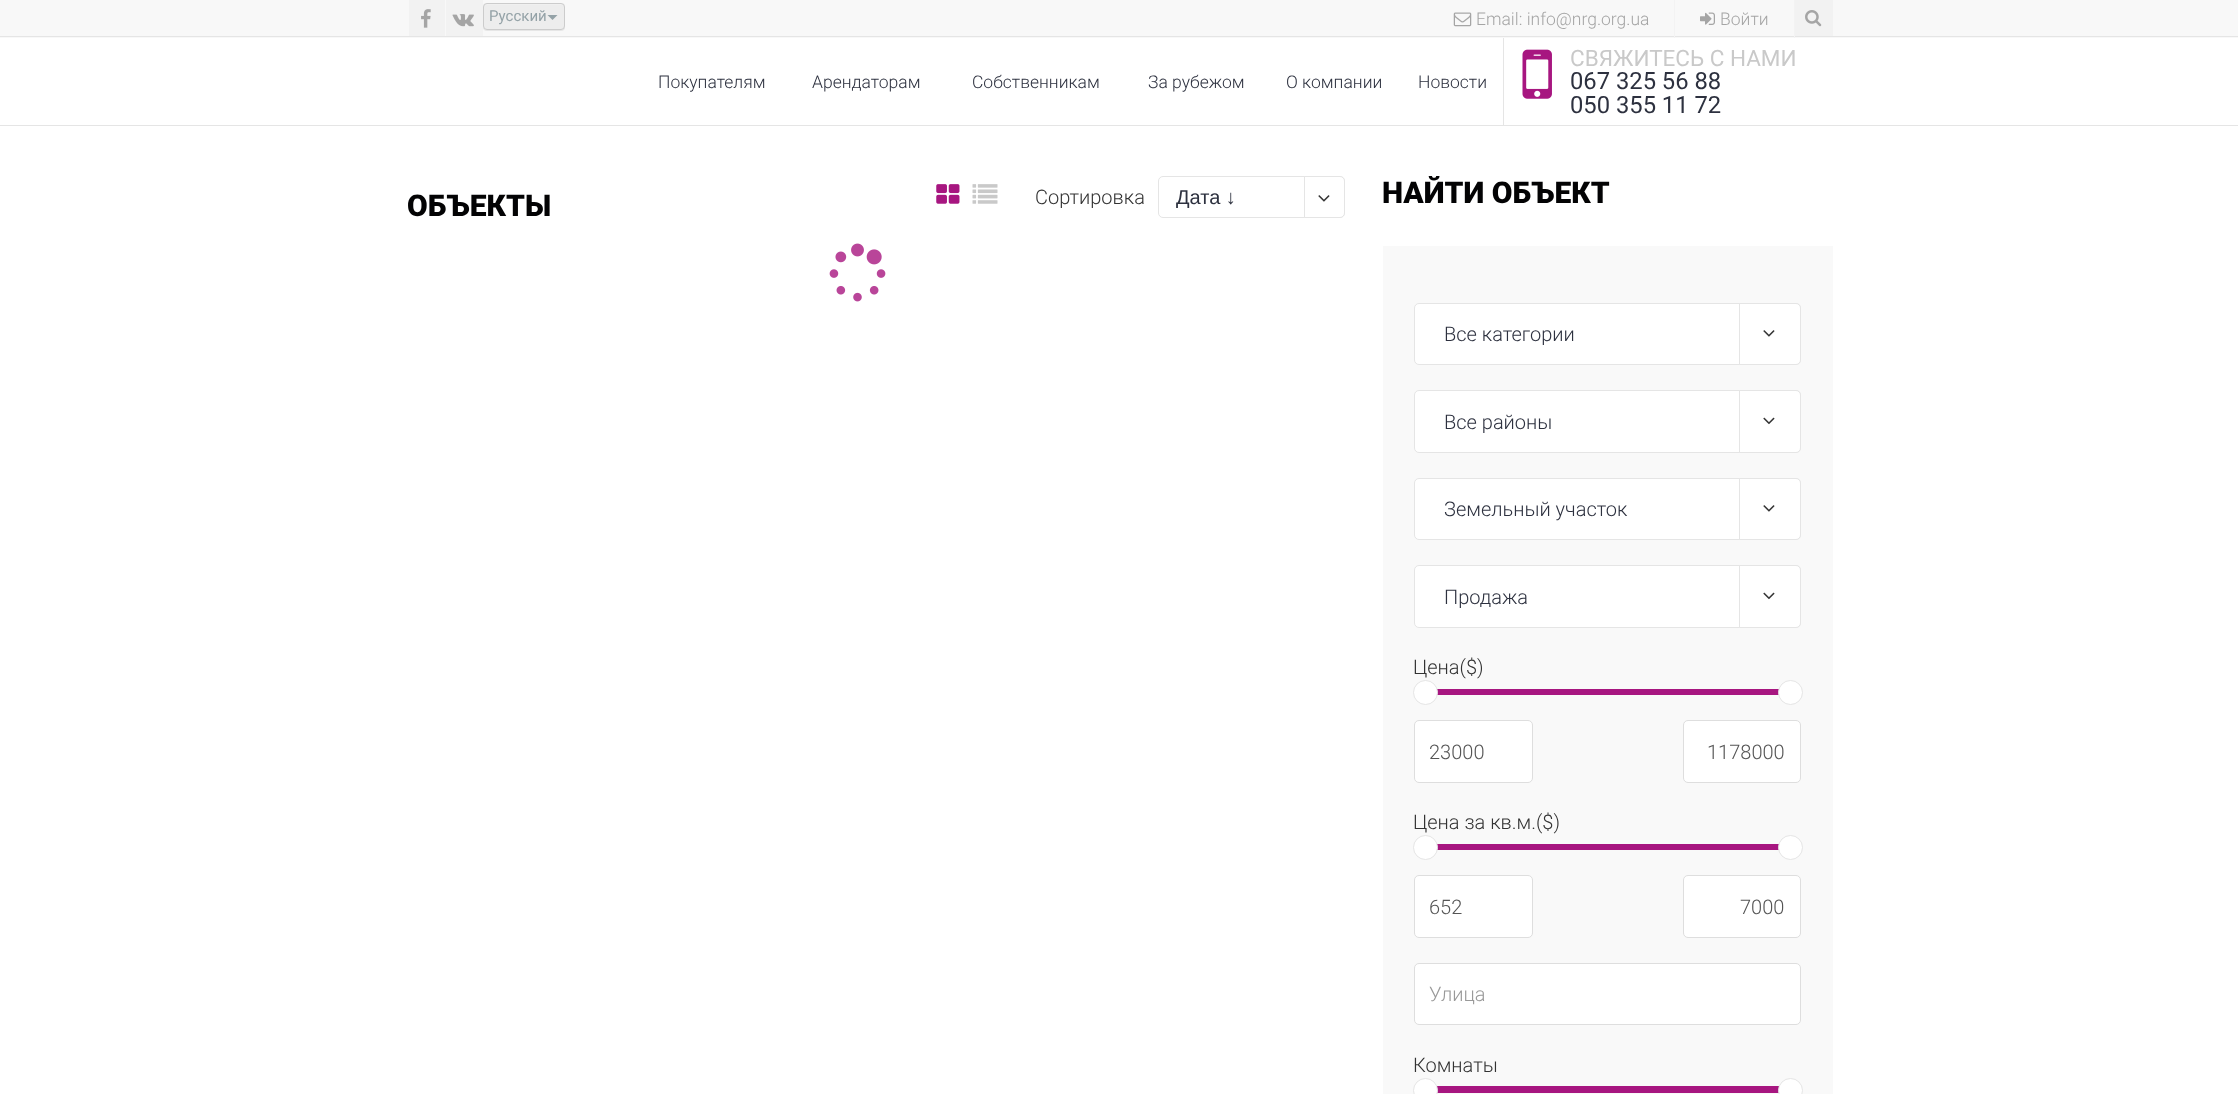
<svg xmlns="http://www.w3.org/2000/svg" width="2238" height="1094">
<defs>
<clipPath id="clip1"><rect x="1176" y="184" width="135" height="26"/></clipPath>
</defs>
<rect width="100%" height="100%" fill="#fff"/>
<rect y="125" width="2238" height="1" fill="#e5e5e5"/>
<rect width="2238" height="38" fill="#f8f8f8"/>
<rect y="36" width="2238" height="1" fill="#e5e5e5"/>
<rect x="409" width="36" height="36" fill="#f2f2f2"/>
<image x="421" y="9" width="10" height="19" href="media/1.png"/>
<rect x="446" width="37" height="36" fill="#f2f2f2"/>
<image x="452" y="14" width="22" height="13" href="media/2.png"/>
<rect x="483" y="4" width="82" height="27" rx="4" fill="#00000012" filter="blur(0.5px)"/>
<rect x="483" y="3" width="82" height="27" rx="4" fill="#ededed"/>
<path d="M486 5h75c2 0 3 1 3 3c0-7-9-4-15-4h-50c-6 0-15-3-15 4c0-2 1-3 2-3z" fill="#f0f0f0"/>
<rect x="483.5" y="3.5" width="81" height="26" rx="3.5" fill="none" stroke="#ccc"/>
<text x="489" y="21" style="font-family:Roboto;font-size:15px;fill:#94a2a7">Русский</text>
<path d="M547.5 15h10l-5 5z" fill="#94a2a7"/>
<rect x="1674" width="1" height="38" fill="#f3f3f3"/>
<image x="1453" y="12" width="19" height="15" href="media/3.png"/>
<text x="1476" y="25" style="font-family:Roboto;font-size:17.5px;font-weight:300;fill:#a5a5a5">Email: info@nrg.org.ua</text>
<rect x="1794" width="1" height="38" fill="#f3f3f3"/>
<image x="1700" y="12" width="15" height="13" href="media/4.png"/>
<text x="1720" y="25" style="font-family:Roboto;font-size:17.5px;font-weight:300;fill:#a5a5a5">Войти</text>
<rect x="1795" width="38" height="36" fill="#f2f2f2"/>
<image x="1805" y="10" width="17" height="17" href="media/5.png"/>
<text x="658" y="88" style="font-family:Roboto;font-size:17.5px;font-weight:300;fill:#2d313f">Покупателям</text>
<text x="812" y="88" style="font-family:Roboto;font-size:17.5px;font-weight:300;fill:#2d313f">Арендаторам</text>
<text x="972" y="88" style="font-family:Roboto;font-size:17.5px;font-weight:300;fill:#2d313f">Собственникам</text>
<text x="1148" y="88" style="font-family:Roboto;font-size:17.5px;font-weight:300;fill:#2d313f">За рубежом</text>
<text x="1286" y="88" style="font-family:Roboto;font-size:17.5px;font-weight:300;fill:#2d313f">О компании</text>
<text x="1418" y="88" style="font-family:Roboto;font-size:17.5px;font-weight:300;fill:#2d313f">Новости</text>
<rect x="1503" y="38" width="1" height="87" fill="#e5e5e5"/>
<image x="1522" y="49" width="30" height="50" href="media/6.png"/>
<text x="1570" y="66" style="font-family:Roboto;font-size:22.5px;fill:#c9c9c9">СВЯЖИТЕСЬ С НАМИ</text>
<text x="1570" y="89" style="font-family:Roboto;font-size:23.75px;fill:#2d313f">067 325 56 88</text>
<text x="1570" y="113" style="font-family:Roboto;font-size:23.75px;fill:#2d313f">050 355 11 72</text>
<text x="407" y="216" style="font-family:Roboto;font-size:30px;font-weight:900;fill:#030304">ОБЪЕКТЫ</text>
<image x="936" y="184" width="24" height="20" href="media/7.png"/>
<image x="972" y="184" width="26" height="20" href="media/8.png"/>
<text x="1035" y="204" style="font-family:Roboto;font-size:20px;font-weight:300;fill:#333">Сортировка</text>
<rect x="1158.5" y="176.5" width="186" height="41" rx="4.5" fill="none" stroke="#e5e5e5"/>
<g clip-path="url(#clip1)">
<text x="1176" y="204" style="font-family:Liberation Sans;font-size:20px;fill:#2d313f">Дата ↓</text>
</g>
<path d="M1304.5 176.5h35.5c2.5 0 4.5 2 4.5 4.5v32c0 2.5-2 4.5-4.5 4.5h-35.5z" fill="#fff" stroke="#e5e5e5"/>
<image x="1318" y="195" width="12" height="7" href="media/9.png"/>
<image x="829" y="243" width="57" height="59" href="media/10.png"/>
<text x="1382" y="203" style="font-family:Roboto;font-size:30px;font-weight:900;fill:#030304">НАЙТИ ОБЪЕКТ</text>
<rect x="1383" y="246" width="450" height="848" fill="#f9f9f9"/>
<rect x="1414.5" y="303.5" width="386" height="61" rx="4.5" fill="#fff" stroke="#e5e5e5"/>
<text x="1444" y="341" style="font-family:Roboto;font-size:20px;font-weight:300;fill:#2d313f">Все категории</text>
<path d="M1739.5 303.5h56.5c2.5 0 4.5 2 4.5 4.5v52c0 2.5-2 4.5-4.5 4.5h-56.5z" fill="#fff" stroke="#e5e5e5"/>
<image x="1763" y="330" width="12" height="7" href="media/9.png"/>
<rect x="1414.5" y="390.5" width="386" height="62" rx="4.5" fill="#fff" stroke="#e5e5e5"/>
<text x="1444" y="429" style="font-family:Roboto;font-size:20px;font-weight:300;fill:#2d313f">Все районы</text>
<path d="M1739.5 390.5h56.5c2.5 0 4.5 2 4.5 4.5v53c0 2.5-2 4.5-4.5 4.5h-56.5z" fill="#fff" stroke="#e5e5e5"/>
<image x="1763" y="417" width="12" height="8" href="media/11.png"/>
<rect x="1414.5" y="478.5" width="386" height="61" rx="4.5" fill="#fff" stroke="#e5e5e5"/>
<text x="1444" y="516" style="font-family:Roboto;font-size:20px;font-weight:300;fill:#2d313f">Земельный участок</text>
<path d="M1739.5 478.5h56.5c2.5 0 4.5 2 4.5 4.5v52c0 2.5-2 4.5-4.5 4.5h-56.5z" fill="#fff" stroke="#e5e5e5"/>
<image x="1763" y="505" width="12" height="7" href="media/9.png"/>
<rect x="1414.5" y="565.5" width="386" height="62" rx="4.5" fill="#fff" stroke="#e5e5e5"/>
<text x="1444" y="604" style="font-family:Roboto;font-size:20px;font-weight:300;fill:#2d313f">Продажа</text>
<path d="M1739.5 565.5h56.5c2.5 0 4.5 2 4.5 4.5v53c0 2.5-2 4.5-4.5 4.5h-56.5z" fill="#fff" stroke="#e5e5e5"/>
<image x="1763" y="592" width="12" height="8" href="media/11.png"/>
<text x="1413" y="674" style="font-family:Roboto;font-size:20px;font-weight:300;fill:#333">Цена($)</text>
<rect x="1437" y="689" width="342" height="6" fill="#a71680"/>
<circle cx="1425.5" cy="692.5" r="12" fill="#fff" stroke="#e5e5e5"/>
<circle cx="1790.5" cy="692.5" r="12" fill="#fff" stroke="#e5e5e5"/>
<rect x="1414.5" y="720.5" width="118" height="62" rx="4.5" fill="#fff" stroke="#dedede"/>
<text x="1429" y="759" style="font-family:Roboto;font-size:20px;font-weight:300;fill:#555">23000</text>
<rect x="1683.5" y="720.5" width="117" height="62" rx="4.5" fill="#fff" stroke="#dedede"/>
<text x="1707" y="759" style="font-family:Roboto;font-size:20px;font-weight:300;fill:#555">1178000</text>
<text x="1413" y="829" style="font-family:Roboto;font-size:20px;font-weight:300;fill:#333">Цена за кв.м.($)</text>
<rect x="1437" y="844" width="342" height="6" fill="#a71680"/>
<circle cx="1425.5" cy="847.5" r="12" fill="#fff" stroke="#e5e5e5"/>
<circle cx="1790.5" cy="847.5" r="12" fill="#fff" stroke="#e5e5e5"/>
<rect x="1414.5" y="875.5" width="118" height="62" rx="4.5" fill="#fff" stroke="#dedede"/>
<text x="1429" y="914" style="font-family:Roboto;font-size:20px;font-weight:300;fill:#555">652</text>
<rect x="1683.5" y="875.5" width="117" height="62" rx="4.5" fill="#fff" stroke="#dedede"/>
<text x="1740" y="914" style="font-family:Roboto;font-size:20px;font-weight:300;fill:#555">7000</text>
<rect x="1414.5" y="963.5" width="386" height="61" rx="4.5" fill="#fff" stroke="#dedede"/>
<text x="1429" y="1001" style="font-family:Roboto;font-size:20px;font-weight:300;fill:#999">Улица</text>
<text x="1413" y="1072" style="font-family:Roboto;font-size:20px;font-weight:300;fill:#333">Комнаты</text>
<rect x="1437" y="1086" width="342" height="7" fill="#a71680"/>
<circle cx="1425.5" cy="1090.5" r="12" fill="#fff" stroke="#e5e5e5"/>
<circle cx="1790.5" cy="1090.5" r="12" fill="#fff" stroke="#e5e5e5"/>
</svg>
